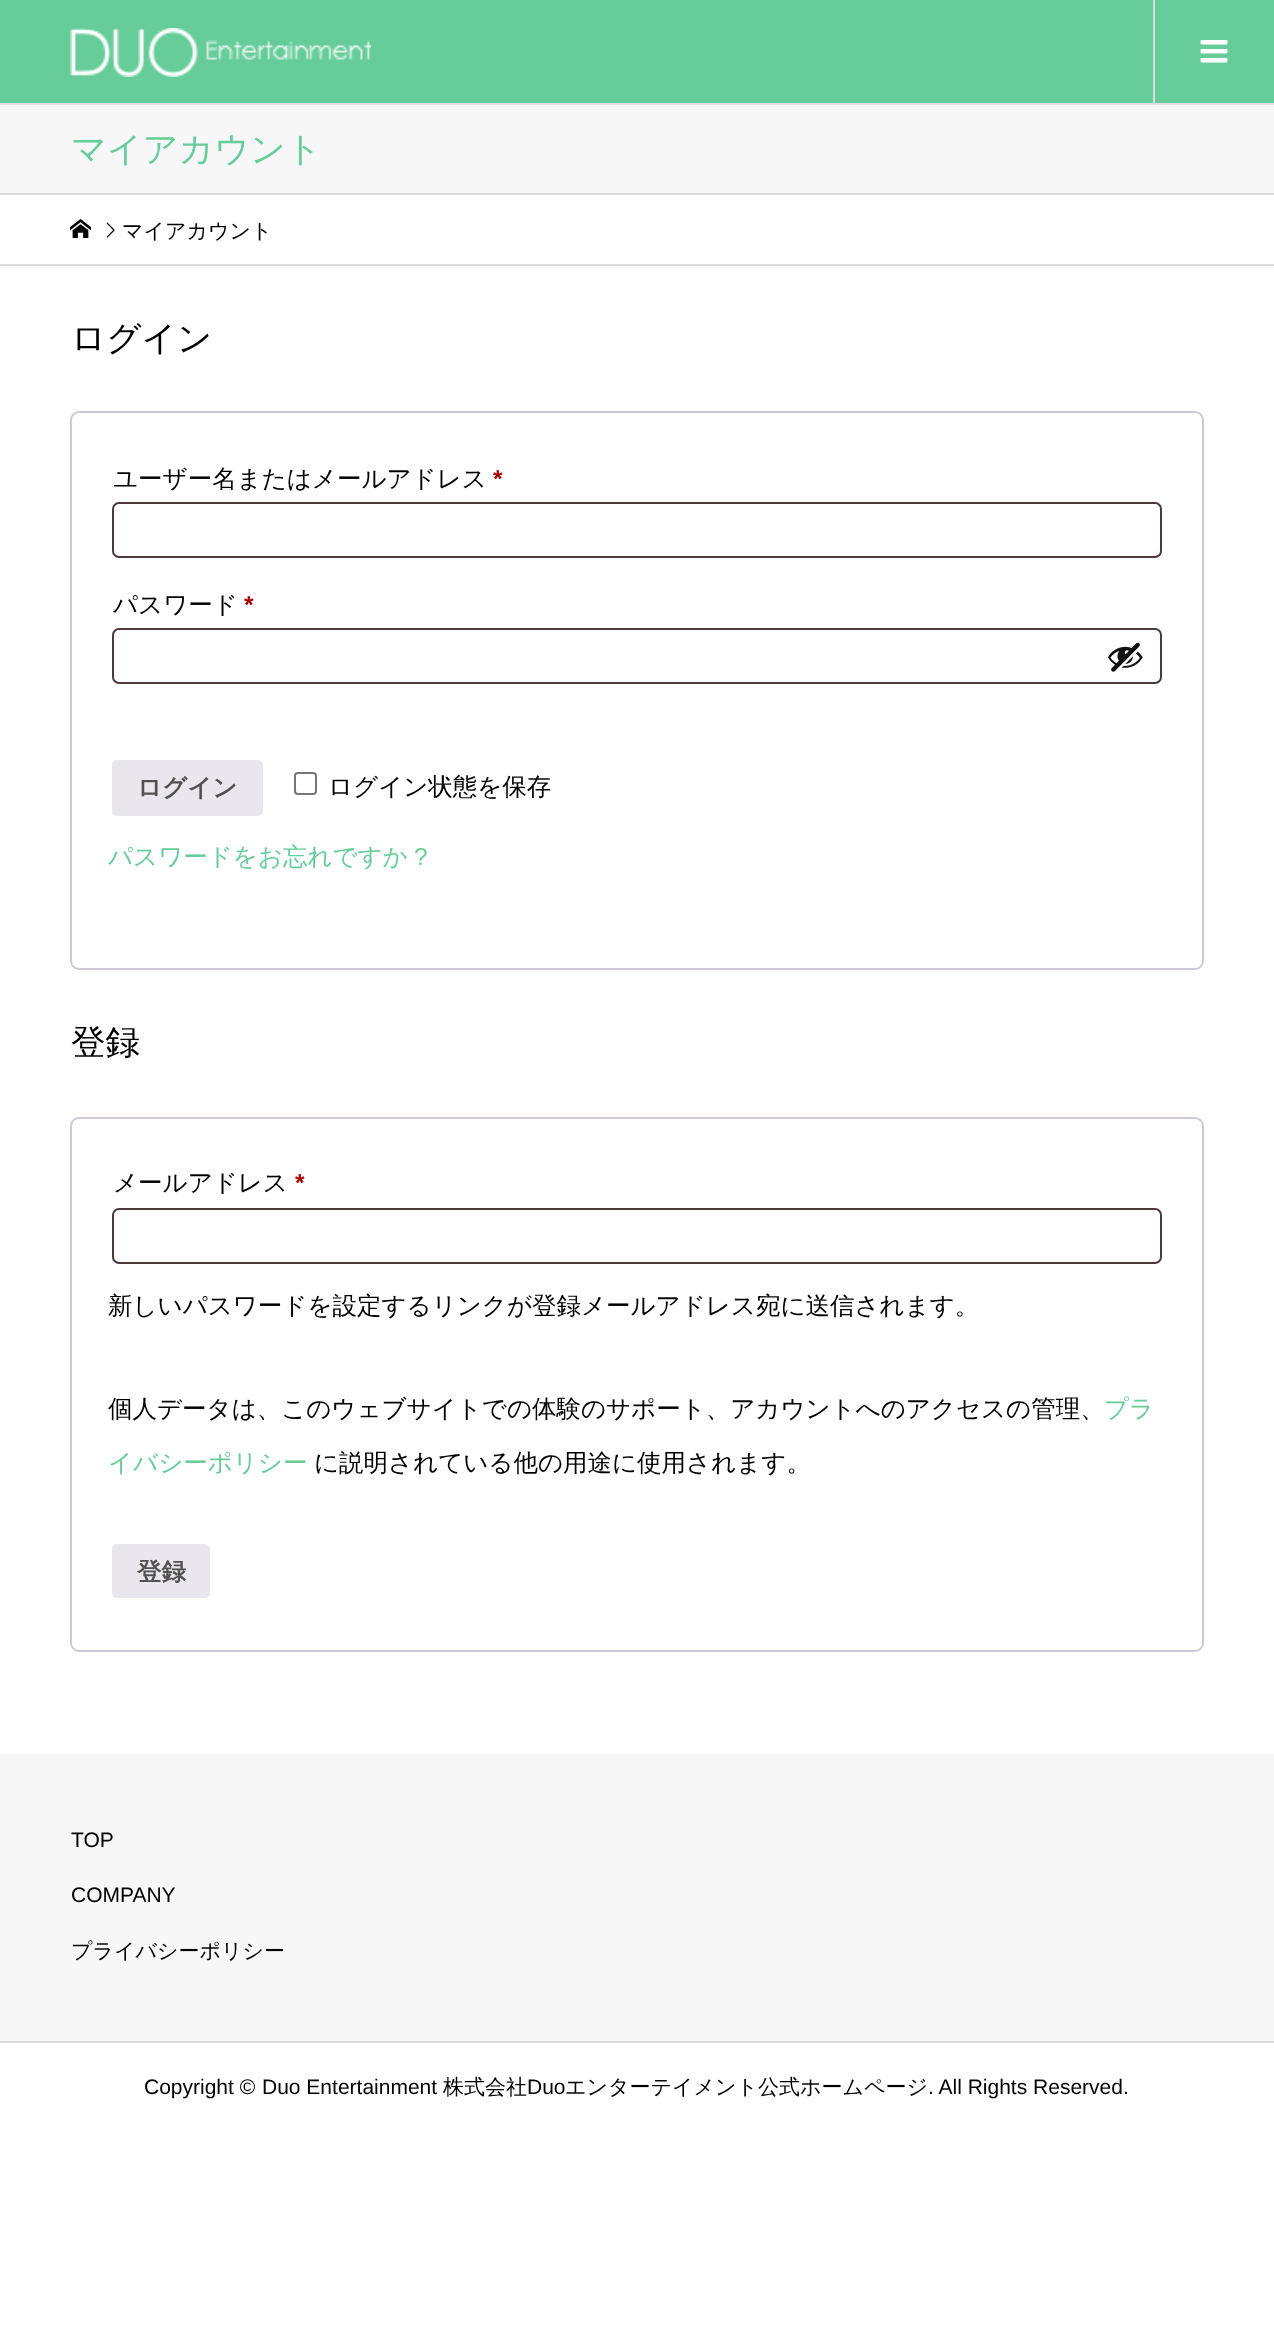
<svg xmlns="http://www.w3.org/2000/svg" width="1274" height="2326">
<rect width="100%" height="100%" fill="#fff"/>
<rect width="1274" height="103" fill="#6c9"/>
<rect y="103" width="1274" height="2" fill="#ddd"/>
<image x="70" y="28" width="301" height="49" href="media/1.png"/>
<rect x="1153" width="2" height="103" fill="#ddd"/>
<image x="1200" y="40" width="28" height="23" href="media/2.png"/>
<rect y="105" width="1274" height="88" fill="#f7f7f7"/>
<rect y="193" width="1274" height="2" fill="#ddd"/>
<text x="71" y="161" style="font-family:WenQuanYi Zen Hei;font-size:35px;font-weight:500;fill:#6c9">マイアカウント</text>
<rect y="264" width="1274" height="2" fill="#ddd"/>
<image x="70" y="219" width="21" height="19" href="media/3.png"/>
<image x="106" y="222" width="9" height="16" href="media/4.png"/>
<text x="122" y="238" style="font-family:WenQuanYi Zen Hei;font-size:21px;font-weight:500;fill:#000">マイアカウント</text>
<text x="71" y="350" style="font-family:WenQuanYi Zen Hei;font-size:34.5px;font-weight:500;fill:#000">ログイン</text>
<rect x="71" y="412" width="1132" height="557" rx="8" fill="none" stroke="#cfc8d8" stroke-width="2"/>
<text x="113" y="487" style="font-family:WenQuanYi Zen Hei;font-size:24.5px;font-weight:500;fill:#000">ユーザー名またはメールアドレス</text>
<text x="493" y="487" style="font-family:Liberation Sans;font-size:24.5px;font-weight:bold;fill:#a00">*</text>
<rect x="113" y="503" width="1048" height="54" rx="6" fill="none" stroke="#4d3939" stroke-width="2"/>
<text x="113" y="613" style="font-family:WenQuanYi Zen Hei;font-size:24.5px;font-weight:500;fill:#000">パスワード</text>
<text x="244" y="613" style="font-family:Liberation Sans;font-size:24.5px;font-weight:bold;fill:#a00">*</text>
<rect x="113" y="629" width="1048" height="54" rx="6" fill="none" stroke="#4d3939" stroke-width="2"/>
<image x="1108" y="642" width="35" height="30" href="media/5.png"/>
<rect x="112" y="760" width="151" height="56" rx="5" fill="#e9e6ed"/>
<text x="137" y="796" style="font-family:WenQuanYi Zen Hei;font-size:24.5px;font-weight:bold;fill:#515151">ログイン</text>
<rect x="295" y="773" width="21" height="21" rx="3" fill="none" stroke="#767676" stroke-width="2"/>
<text x="328" y="795" style="font-family:WenQuanYi Zen Hei;font-size:24.5px;font-weight:500;fill:#000">ログイン状態を保存</text>
<text x="108" y="865" style="font-family:WenQuanYi Zen Hei;font-size:24.5px;font-weight:500;fill:#6c9">パスワードをお忘れですか</text>
<text x="414" y="865" style="font-family:Liberation Sans;font-size:24.5px;fill:#6c9">?</text>
<text x="71" y="1054" style="font-family:WenQuanYi Zen Hei;font-size:34.5px;font-weight:500;fill:#000">登録</text>
<rect x="71" y="1118" width="1132" height="533" rx="8" fill="none" stroke="#cfc8d8" stroke-width="2"/>
<text x="113" y="1191" style="font-family:WenQuanYi Zen Hei;font-size:24.5px;font-weight:500;fill:#000">メールアドレス</text>
<text x="295" y="1191" style="font-family:Liberation Sans;font-size:24.5px;font-weight:bold;fill:#a00">*</text>
<rect x="113" y="1209" width="1048" height="54" rx="6" fill="none" stroke="#4d3939" stroke-width="2"/>
<text x="108" y="1314" style="font-family:WenQuanYi Zen Hei;font-size:24.5px;font-weight:500;fill:#000">新しいパスワードを設定するリンクが登録メールアドレス宛に送信されます。</text>
<text x="108" y="1417" style="font-family:WenQuanYi Zen Hei;font-size:24.5px;font-weight:500;fill:#000">個人データは、このウェブサイトでの体験のサポート、アカウントへのアクセスの管理、</text>
<text x="1104" y="1417" style="font-family:WenQuanYi Zen Hei;font-size:24.5px;font-weight:500;fill:#6c9">プラ</text>
<text x="108" y="1471" style="font-family:WenQuanYi Zen Hei;font-size:24.5px;font-weight:500;fill:#6c9">イバシーポリシー</text>
<text x="314" y="1471" style="font-family:WenQuanYi Zen Hei;font-size:24.5px;font-weight:500;fill:#000">に説明されている他の用途に使用されます。</text>
<rect x="112" y="1544" width="98" height="54" rx="5" fill="#e9e6ed"/>
<text x="137" y="1580" style="font-family:WenQuanYi Zen Hei;font-size:24.5px;font-weight:bold;fill:#515151">登録</text>
<rect y="1754" width="1274" height="287" fill="#f7f7f7"/>
<text x="71" y="1847" style="font-family:Liberation Sans;font-size:21px;fill:#000">TOP</text>
<text x="71" y="1902" style="font-family:Liberation Sans;font-size:21px;fill:#000">COMPANY</text>
<text x="71" y="1958" style="font-family:WenQuanYi Zen Hei;font-size:21px;font-weight:500;fill:#000">プライバシーポリシー</text>
<rect y="2041" width="1274" height="2" fill="#ddd"/>
<text x="144" y="2094" style="font-family:Liberation Sans;font-size:21px;fill:#000">Copyright ©</text>
<text x="262" y="2094" style="font-family:Liberation Sans;font-size:21px;fill:#000">Duo Entertainment</text>
<text x="443" y="2094" style="font-family:WenQuanYi Zen Hei;font-size:21px;font-weight:500;fill:#000">株式会社</text>
<text x="527" y="2094" style="font-family:Liberation Sans;font-size:21px;fill:#000">Duo</text>
<text x="565" y="2094" style="font-family:WenQuanYi Zen Hei;font-size:21px;font-weight:500;fill:#000">エンターテイメント公式ホームページ</text>
<text x="928" y="2094" style="font-family:Liberation Sans;font-size:21px;fill:#000">. All Rights Reserved.</text>
</svg>
